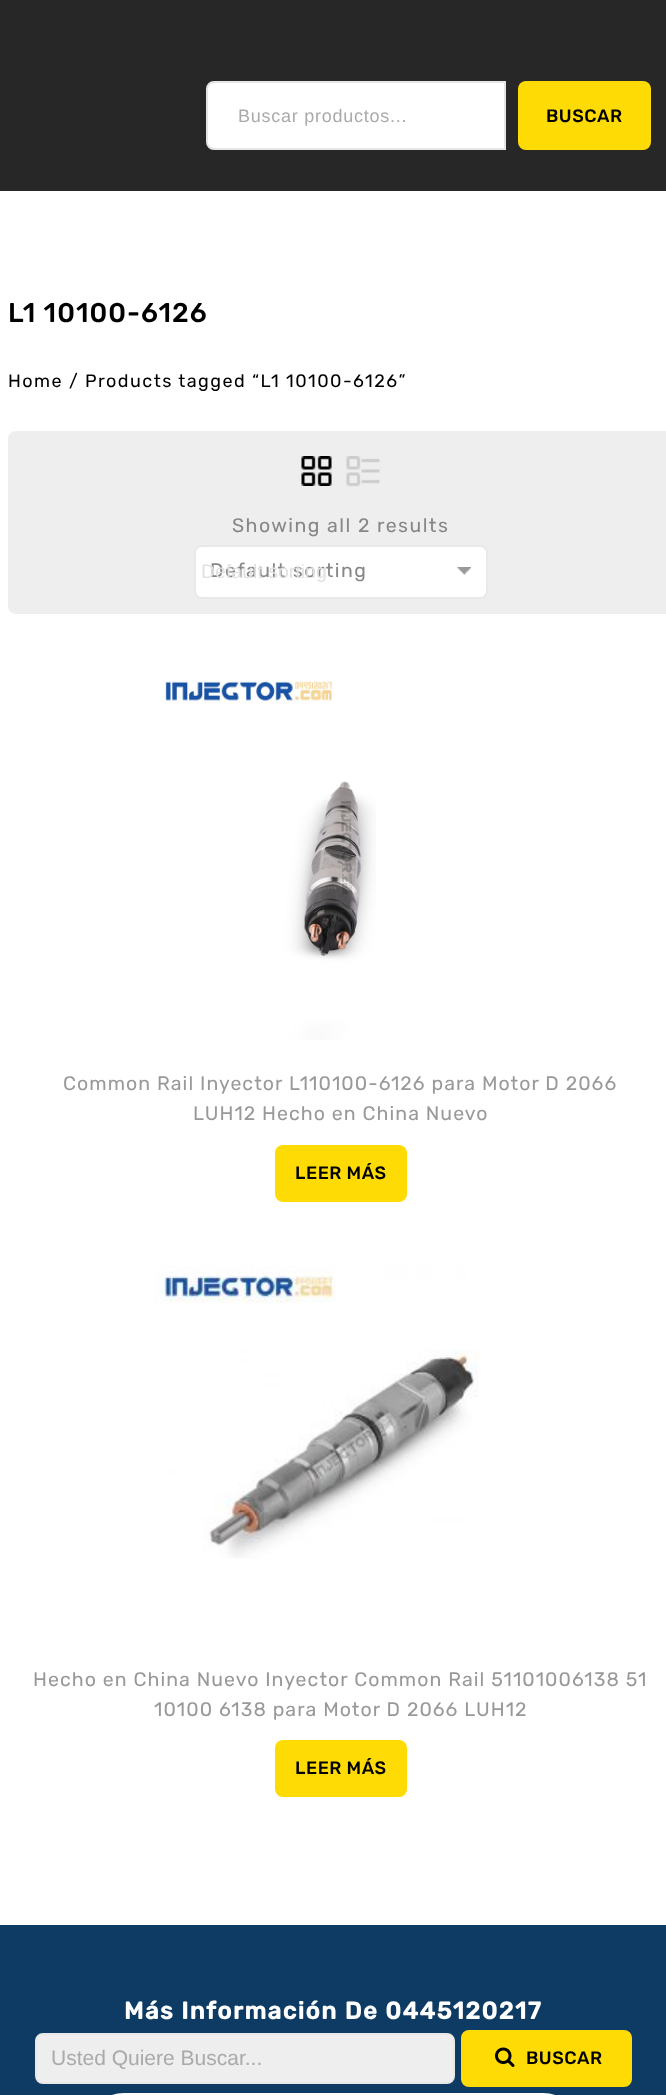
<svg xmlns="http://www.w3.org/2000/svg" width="666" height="2095">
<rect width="100%" height="100%" fill="#fff"/>
<rect width="666" height="191" fill="#272727"/>
<path d="M214 82h291v67h-291c-4 0-7-3-7-7v-53c0-4 3-7 7-7z" fill="#fff" stroke="#e5e5e5" stroke-width="2"/>
<text x="238" y="122" style="font-family:Liberation Sans;font-size:18px;letter-spacing:0.75px;fill:#aaa">Buscar productos...</text>
<rect x="518" y="81" width="133" height="69" rx="8" fill="#ffdb06"/>
<text x="546" y="122" style="font-family:Rubik;font-size:18px;font-weight:500;letter-spacing:0.5px;fill:#000">BUSCAR</text>
<text x="8" y="322" style="font-family:Rubik;font-size:27px;font-weight:500;letter-spacing:1.05px;fill:#000">L1 10100-6126</text>
<text x="8" y="387" style="font-family:Rubik;font-size:18px;font-weight:300;letter-spacing:1.45px;fill:#000">Home / Products tagged “L1 10100-6126”</text>
<rect x="8" y="431" width="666" height="183" rx="8" fill="#eee"/>
<image x="301" y="456" width="31" height="30" href="media/1.png"/>
<image x="346" y="456" width="34" height="31" href="media/2.png"/>
<text x="232" y="532" style="font-family:Rubik;font-size:19.5px;font-weight:300;letter-spacing:1.45px;fill:#878787">Showing all 2 results</text>
<rect x="195" y="546" width="292" height="52" rx="7" fill="#fff" stroke="#e9e9e9" stroke-width="2"/>
<image x="457" y="567" width="14" height="8" href="media/3.png"/>
<text x="210" y="577" style="font-family:Rubik;font-size:19.5px;font-weight:300;letter-spacing:1.45px;fill:#878787">Default sorting</text>
<text x="201" y="578" style="font-family:Liberation Sans;font-size:19.5px;fill:#e1e1e1">Default sorting</text>
<image x="165" y="681" width="211" height="359" href="media/4.png"/>
<text x="63" y="1090" style="font-family:Rubik;font-size:19.5px;font-weight:300;letter-spacing:1.05px;fill:#999">Common Rail Inyector L110100-6126 para Motor D 2066</text>
<text x="193" y="1120" style="font-family:Rubik;font-size:19.5px;font-weight:300;letter-spacing:1.05px;fill:#999">LUH12 Hecho en China Nuevo</text>
<rect x="275" y="1145" width="132" height="57" rx="8" fill="#ffdb06"/>
<text x="295" y="1179" style="font-family:Rubik;font-size:18px;font-weight:500;letter-spacing:0.5px;fill:#000">LEER MÁS</text>
<image x="154" y="1266" width="325" height="293" href="media/5.png"/>
<text x="33" y="1686" style="font-family:Rubik;font-size:19.5px;font-weight:300;letter-spacing:1.05px;fill:#999">Hecho en China Nuevo Inyector Common Rail 51101006138 51</text>
<text x="154" y="1716" style="font-family:Rubik;font-size:19.5px;font-weight:300;letter-spacing:1.05px;fill:#999">10100 6138 para Motor D 2066 LUH12</text>
<rect x="275" y="1740" width="132" height="57" rx="8" fill="#ffdb06"/>
<text x="295" y="1774" style="font-family:Rubik;font-size:18px;font-weight:500;letter-spacing:0.5px;fill:#000">LEER MÁS</text>
<rect y="1925" width="666" height="170" fill="#0d3b63"/>
<text x="124" y="2019" style="font-family:Rubik;font-size:24px;font-weight:bold;letter-spacing:1.45px;fill:#fff">Más Información De 0445120217</text>
<rect x="36" y="2034" width="418" height="49" rx="7" fill="#eee" stroke="#e8e8e8" stroke-width="2"/>
<text x="51" y="2065" style="font-family:Liberation Sans;font-size:21px;fill:#aaa">Usted Quiere Buscar...</text>
<rect x="461" y="2030" width="171" height="57" rx="8" fill="#ffdb06"/>
<image x="495" y="2047" width="20" height="20" href="media/6.png"/>
<text x="526" y="2064" style="font-family:Rubik;font-size:18px;font-weight:500;letter-spacing:0.5px;fill:#000">BUSCAR</text>
<rect x="102" y="2094" width="463" height="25" rx="22" fill="none" stroke="#fff" stroke-width="2"/>
</svg>
